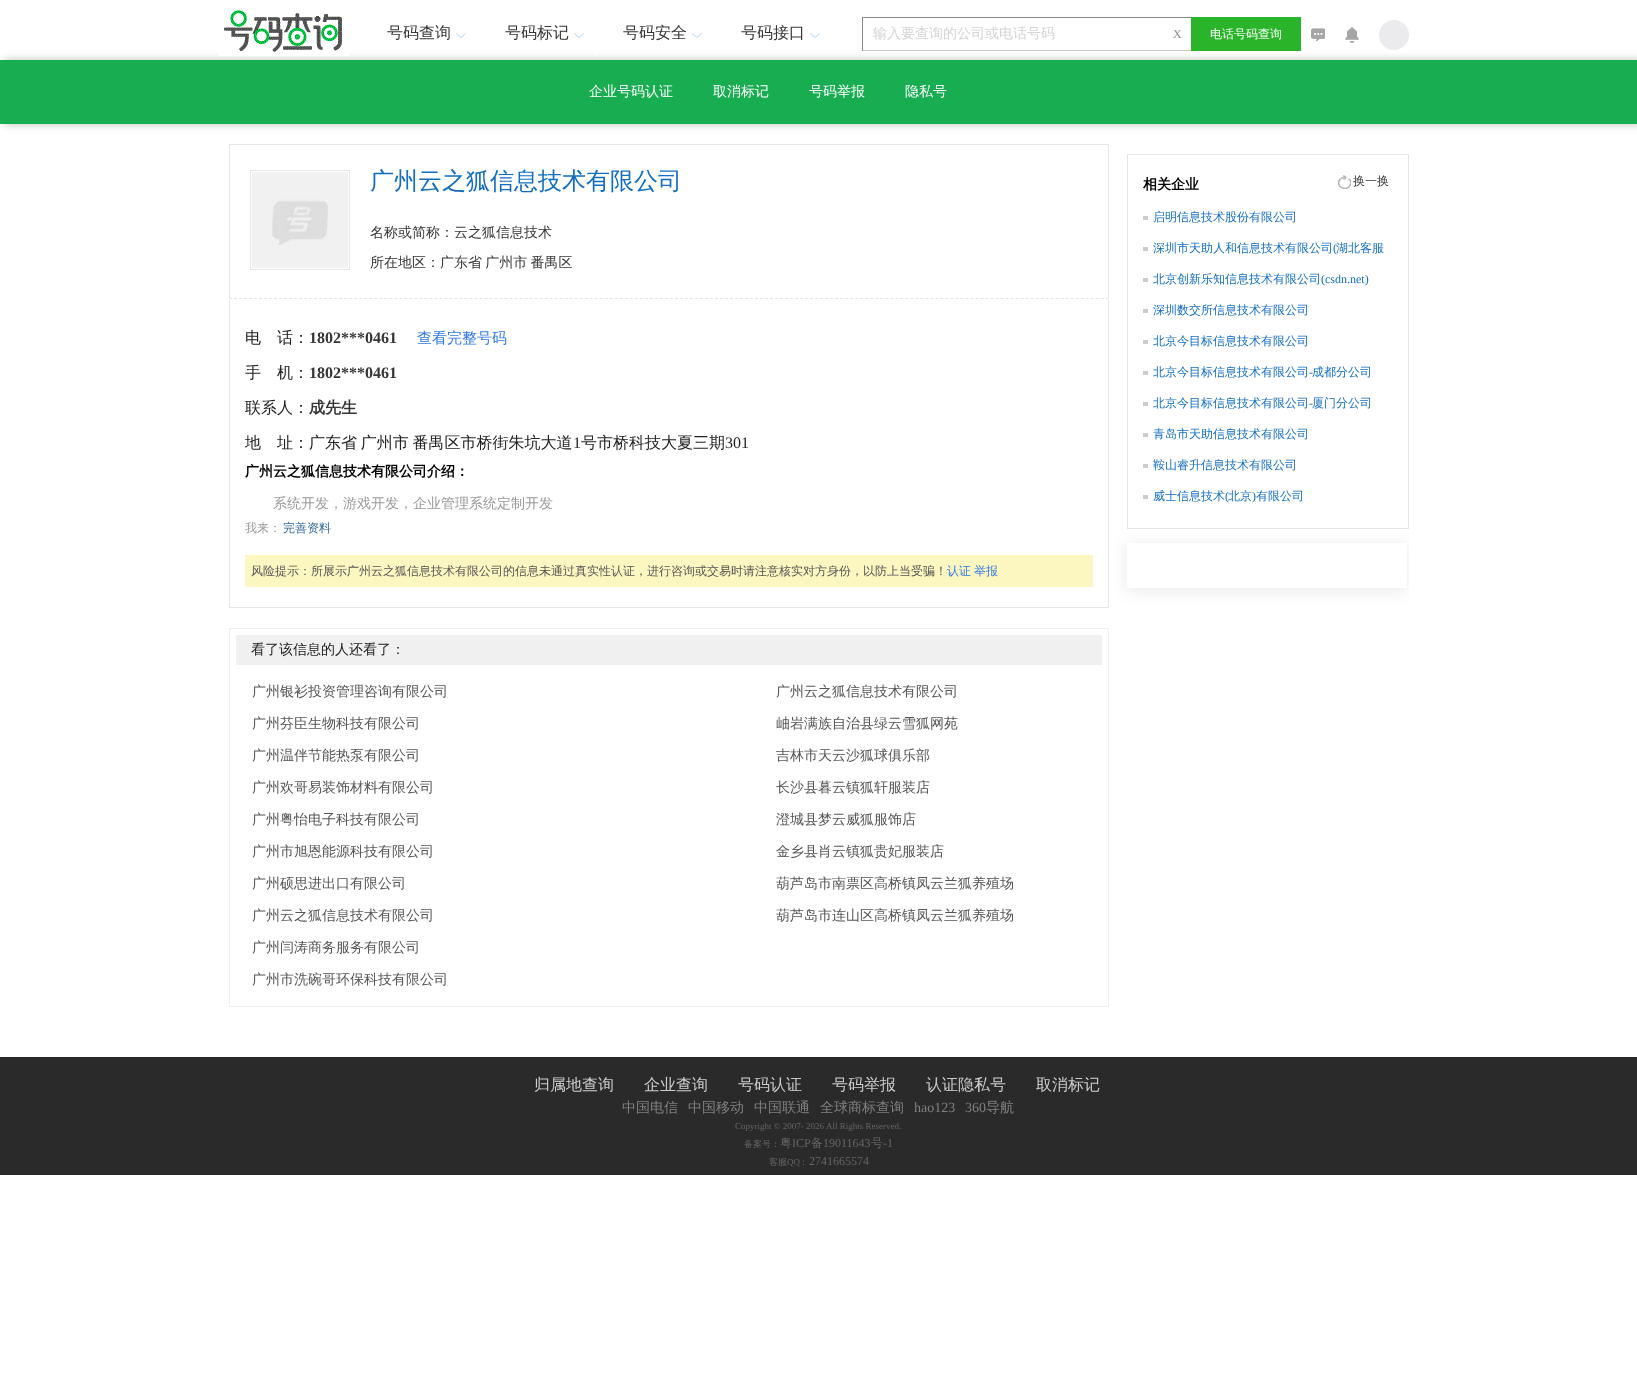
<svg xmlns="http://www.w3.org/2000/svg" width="1637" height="1379">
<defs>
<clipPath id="clip1"><rect x="873" y="18" width="287" height="32"/></clipPath>
<clipPath id="clip2"><rect x="245" y="425" width="64" height="36"/></clipPath>
<clipPath id="clip3"><rect x="776" y="872" width="326" height="24"/></clipPath>
<clipPath id="clip4"><rect x="776" y="904" width="326" height="24"/></clipPath>
<clipPath id="clip5"><rect x="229" y="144" width="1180" height="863"/></clipPath>
<clipPath id="clip6"><path d="M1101 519h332v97h-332zm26 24h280v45h-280z" clip-rule="evenodd"/></clipPath>
</defs>
<rect width="100%" height="100%" fill="#fff"/>
<rect x="4" y="60" width="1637" height="64" fill="#bdbdbd" filter="blur(4px)"/>
<image x="219" y="10" width="130" height="46" href="media/1.png"/>
<rect x="477" y="53" width="2" height="2" fill="#fff"/>
<rect x="360" y="53" width="1" height="2" fill="#fff"/>
<text x="387" y="38" style="font-family:WenQuanYi Zen Hei;font-size:16px;font-weight:500;fill:#363636">号码查询</text>
<image x="456" y="33" width="10" height="5" href="media/2.png"/>
<rect x="595" y="53" width="2" height="2" fill="#fff"/>
<text x="505" y="38" style="font-family:WenQuanYi Zen Hei;font-size:16px;font-weight:500;fill:#363636">号码标记</text>
<image x="574" y="33" width="10" height="5" href="media/2.png"/>
<rect x="713" y="53" width="2" height="2" fill="#fff"/>
<text x="623" y="38" style="font-family:WenQuanYi Zen Hei;font-size:16px;font-weight:500;fill:#363636">号码安全</text>
<image x="692" y="33" width="10" height="5" href="media/2.png"/>
<rect x="831" y="53" width="1" height="2" fill="#fff"/>
<text x="741" y="38" style="font-family:WenQuanYi Zen Hei;font-size:16px;font-weight:500;fill:#363636">号码接口</text>
<image x="810" y="33" width="10" height="5" href="media/2.png"/>
<rect x="862" y="17" width="331" height="1" fill="#888"/>
<rect x="862" y="50" width="331" height="1" fill="#ccc"/>
<rect x="862" y="17" width="1" height="34" fill="#888"/>
<g clip-path="url(#clip1)">
<text x="873" y="38" style="font-family:WenQuanYi Zen Hei;font-size:14px;font-weight:500;fill:#d3d3d3">输入要查询的公司或电话号码</text>
</g>
<text x="1173" y="38" style="font-family:Liberation Serif;font-size:12px;fill:#888">X</text>
<rect x="1191" y="17" width="110" height="34" fill="#29b429"/>
<text x="1210" y="38" style="font-family:WenQuanYi Zen Hei;font-size:12px;font-weight:500;fill:#fff">电话号码查询</text>
<image x="1311" y="28" width="14" height="14" href="media/3.png"/>
<image x="1345" y="27" width="14" height="16" href="media/4.png"/>
<image x="1379" y="20" width="30" height="30" href="media/5.png"/>
<rect y="60" width="1637" height="64" fill="#18ad51"/>
<text x="589" y="96" style="font-family:WenQuanYi Zen Hei;font-size:14px;font-weight:500;fill:#fff">企业号码认证</text>
<text x="713" y="96" style="font-family:WenQuanYi Zen Hei;font-size:14px;font-weight:500;fill:#fff">取消标记</text>
<text x="809" y="96" style="font-family:WenQuanYi Zen Hei;font-size:14px;font-weight:500;fill:#fff">号码举报</text>
<text x="905" y="96" style="font-family:WenQuanYi Zen Hei;font-size:14px;font-weight:500;fill:#fff">隐私号</text>
<rect x="229" y="144" width="880" height="1" fill="#e5e5e5"/>
<rect x="1108" y="144" width="1" height="154" fill="#e5e5e5"/>
<rect x="229" y="144" width="1" height="154" fill="#e5e5e5"/>
<rect x="250.5" y="170.5" width="99" height="99" fill="none" stroke="#e5e5e5"/>
<image x="252" y="172" width="96" height="96" href="media/6.png"/>
<text x="370" y="189" style="font-family:WenQuanYi Zen Hei;font-size:24px;font-weight:500;fill:#136ec2">广州云之狐信息技术有限公司</text>
<text x="370" y="237" style="font-family:WenQuanYi Zen Hei;font-size:14px;font-weight:500;fill:#363636">名称或简称：云之狐信息技术</text>
<text x="370" y="267" word-spacing="-1" style="font-family:WenQuanYi Zen Hei;font-size:14px;font-weight:500;fill:#363636">所在地区：广东省 广州市 番禺区</text>
<path d="M229 298.5h880" fill="none" stroke="#e5e5e5" stroke-dasharray="3 2.01"/>
<rect x="1108" y="300" width="1" height="308" fill="#e5e5e5"/>
<rect x="229" y="607" width="880" height="1" fill="#e5e5e5"/>
<rect x="229" y="300" width="1" height="308" fill="#e5e5e5"/>
<text x="245" y="343" style="font-family:WenQuanYi Zen Hei;font-size:16px;font-weight:500;fill:#222">电　话：</text>
<text x="309" y="343" style="font-family:Liberation Serif;font-size:16px;font-weight:bold;fill:#363636">1802***0461</text>
<text x="417" y="343" style="font-family:WenQuanYi Zen Hei;font-size:15px;font-weight:500;fill:#3278e6">查看完整号码</text>
<text x="245" y="378" style="font-family:WenQuanYi Zen Hei;font-size:16px;font-weight:500;fill:#222">手　机：</text>
<text x="309" y="378" style="font-family:Liberation Serif;font-size:16px;font-weight:bold;fill:#363636">1802***0461</text>
<text x="245" y="413" style="font-family:WenQuanYi Zen Hei;font-size:16px;font-weight:500;fill:#222">联系人：</text>
<text x="309" y="413" style="font-family:WenQuanYi Zen Hei;font-size:16px;font-weight:bold;fill:#363636">成先生</text>
<g clip-path="url(#clip2)">
<text x="245" y="448" style="font-family:WenQuanYi Zen Hei;font-size:16px;font-weight:500;fill:#222">地　址：</text>
</g>
<text x="309" y="448" word-spacing="-1" style="font-family:WenQuanYi Zen Hei;font-size:16px;font-weight:500;fill:#222">广东省 广州市 番禺区市桥街朱坑大道</text>
<text x="573" y="448" style="font-family:Liberation Serif;font-size:16px;fill:#222">1</text>
<text x="581" y="448" style="font-family:WenQuanYi Zen Hei;font-size:16px;font-weight:500;fill:#222">号市桥科技大夏三期</text>
<text x="725" y="448" style="font-family:Liberation Serif;font-size:16px;fill:#222">301</text>
<text x="245" y="476" style="font-family:WenQuanYi Zen Hei;font-size:14px;font-weight:bold;fill:#000">广州云之狐信息技术有限公司介绍：</text>
<text x="273" y="508" style="font-family:WenQuanYi Zen Hei;font-size:14px;font-weight:500;fill:#999">系统开发，游戏开发，企业管理系统定制开发</text>
<text x="245" y="532" style="font-family:WenQuanYi Zen Hei;font-size:12px;font-weight:500;fill:#999">我来：</text>
<text x="283" y="532" style="font-family:WenQuanYi Zen Hei;font-size:12px;font-weight:500;fill:#369">完善资料</text>
<rect x="245" y="555" width="848" height="32" fill="#fcf6c0"/>
<text x="251" y="575" style="font-family:WenQuanYi Zen Hei;font-size:12px;font-weight:500;fill:#555">风险提示：所展示广州云之狐信息技术有限公司的信息未通过真实性认证，进行咨询或交易时请注意核实对方身份，以防上当受骗！</text>
<text x="947" y="575" style="font-family:WenQuanYi Zen Hei;font-size:12px;font-weight:500;fill:#3278e6">认证</text>
<text x="974" y="575" style="font-family:WenQuanYi Zen Hei;font-size:12px;font-weight:500;fill:#3278e6">举报</text>
<rect x="229.5" y="628.5" width="879" height="378" fill="none" stroke="#f0f0f0"/>
<rect x="236" y="635" width="866" height="30" fill="#f0f0f0"/>
<text x="251" y="654" style="font-family:WenQuanYi Zen Hei;font-size:14px;font-weight:500;fill:#222">看了该信息的人还看了：</text>
<text x="252" y="696" style="font-family:WenQuanYi Zen Hei;font-size:14px;font-weight:500;fill:#555">广州银衫投资管理咨询有限公司</text>
<text x="252" y="728" style="font-family:WenQuanYi Zen Hei;font-size:14px;font-weight:500;fill:#555">广州芬臣生物科技有限公司</text>
<text x="252" y="760" style="font-family:WenQuanYi Zen Hei;font-size:14px;font-weight:500;fill:#555">广州温伴节能热泵有限公司</text>
<text x="252" y="792" style="font-family:WenQuanYi Zen Hei;font-size:14px;font-weight:500;fill:#555">广州欢哥易装饰材料有限公司</text>
<text x="252" y="824" style="font-family:WenQuanYi Zen Hei;font-size:14px;font-weight:500;fill:#555">广州粤怡电子科技有限公司</text>
<text x="252" y="856" style="font-family:WenQuanYi Zen Hei;font-size:14px;font-weight:500;fill:#555">广州市旭恩能源科技有限公司</text>
<text x="252" y="888" style="font-family:WenQuanYi Zen Hei;font-size:14px;font-weight:500;fill:#555">广州硕思进出口有限公司</text>
<text x="252" y="920" style="font-family:WenQuanYi Zen Hei;font-size:14px;font-weight:500;fill:#555">广州云之狐信息技术有限公司</text>
<text x="252" y="952" style="font-family:WenQuanYi Zen Hei;font-size:14px;font-weight:500;fill:#555">广州闫涛商务服务有限公司</text>
<text x="252" y="984" style="font-family:WenQuanYi Zen Hei;font-size:14px;font-weight:500;fill:#555">广州市洗碗哥环保科技有限公司</text>
<text x="776" y="696" style="font-family:WenQuanYi Zen Hei;font-size:14px;font-weight:500;fill:#555">广州云之狐信息技术有限公司</text>
<text x="776" y="728" style="font-family:WenQuanYi Zen Hei;font-size:14px;font-weight:500;fill:#555">岫岩满族自治县绿云雪狐网苑</text>
<text x="776" y="760" style="font-family:WenQuanYi Zen Hei;font-size:14px;font-weight:500;fill:#555">吉林市天云沙狐球俱乐部</text>
<text x="776" y="792" style="font-family:WenQuanYi Zen Hei;font-size:14px;font-weight:500;fill:#555">长沙县暮云镇狐轩服装店</text>
<text x="776" y="824" style="font-family:WenQuanYi Zen Hei;font-size:14px;font-weight:500;fill:#555">澄城县梦云威狐服饰店</text>
<text x="776" y="856" style="font-family:WenQuanYi Zen Hei;font-size:14px;font-weight:500;fill:#555">金乡县肖云镇狐贵妃服装店</text>
<g clip-path="url(#clip3)">
<text x="776" y="888" style="font-family:WenQuanYi Zen Hei;font-size:14px;font-weight:500;fill:#555">葫芦岛市南票区高桥镇凤云兰狐养殖场</text>
</g>
<g clip-path="url(#clip4)">
<text x="776" y="920" style="font-family:WenQuanYi Zen Hei;font-size:14px;font-weight:500;fill:#555">葫芦岛市连山区高桥镇凤云兰狐养殖场</text>
</g>
<rect x="1127.5" y="154.5" width="281" height="374" fill="none" stroke="#e5e5e5"/>
<text x="1143" y="189" style="font-family:WenQuanYi Zen Hei;font-size:14px;font-weight:bold;fill:#000">相关企业</text>
<image x="1338" y="175" width="13" height="14" href="media/7.png"/>
<text x="1353" y="185" style="font-family:WenQuanYi Zen Hei;font-size:12px;font-weight:500;fill:#363636">换一换</text>
<rect x="1143" y="216" width="5" height="4" fill="#ccc"/>
<text x="1153" y="221" style="font-family:WenQuanYi Zen Hei;font-size:12px;font-weight:500;fill:#136ec2">启明信息技术股份有限公司</text>
<rect x="1143" y="247" width="5" height="4" fill="#ccc"/>
<text x="1153" y="252" style="font-family:WenQuanYi Zen Hei;font-size:12px;font-weight:500;fill:#136ec2">深圳市天助人和信息技术有限公司</text>
<text x="1333" y="252" style="font-family:Liberation Serif;font-size:12px;fill:#136ec2">(</text>
<text x="1336" y="252" style="font-family:WenQuanYi Zen Hei;font-size:12px;font-weight:500;fill:#136ec2">湖北客服</text>
<rect x="1143" y="278" width="5" height="4" fill="#ccc"/>
<text x="1153" y="283" style="font-family:WenQuanYi Zen Hei;font-size:12px;font-weight:500;fill:#136ec2">北京创新乐知信息技术有限公司</text>
<text x="1321" y="283" style="font-family:Liberation Serif;font-size:12px;fill:#136ec2">(csdn.net)</text>
<rect x="1143" y="309" width="5" height="4" fill="#ccc"/>
<text x="1153" y="314" style="font-family:WenQuanYi Zen Hei;font-size:12px;font-weight:500;fill:#136ec2">深圳数交所信息技术有限公司</text>
<rect x="1143" y="340" width="5" height="4" fill="#ccc"/>
<text x="1153" y="345" style="font-family:WenQuanYi Zen Hei;font-size:12px;font-weight:500;fill:#136ec2">北京今目标信息技术有限公司</text>
<rect x="1143" y="371" width="5" height="4" fill="#ccc"/>
<text x="1153" y="376" style="font-family:WenQuanYi Zen Hei;font-size:12px;font-weight:500;fill:#136ec2">北京今目标信息技术有限公司</text>
<text x="1309" y="376" style="font-family:Liberation Serif;font-size:12px;fill:#136ec2">-</text>
<text x="1312" y="376" style="font-family:WenQuanYi Zen Hei;font-size:12px;font-weight:500;fill:#136ec2">成都分公司</text>
<rect x="1143" y="402" width="5" height="4" fill="#ccc"/>
<text x="1153" y="407" style="font-family:WenQuanYi Zen Hei;font-size:12px;font-weight:500;fill:#136ec2">北京今目标信息技术有限公司</text>
<text x="1309" y="407" style="font-family:Liberation Serif;font-size:12px;fill:#136ec2">-</text>
<text x="1312" y="407" style="font-family:WenQuanYi Zen Hei;font-size:12px;font-weight:500;fill:#136ec2">厦门分公司</text>
<rect x="1143" y="433" width="5" height="4" fill="#ccc"/>
<text x="1153" y="438" style="font-family:WenQuanYi Zen Hei;font-size:12px;font-weight:500;fill:#136ec2">青岛市天助信息技术有限公司</text>
<rect x="1143" y="464" width="5" height="4" fill="#ccc"/>
<text x="1153" y="469" style="font-family:WenQuanYi Zen Hei;font-size:12px;font-weight:500;fill:#136ec2">鞍山睿升信息技术有限公司</text>
<rect x="1143" y="495" width="5" height="4" fill="#ccc"/>
<text x="1153" y="500" style="font-family:WenQuanYi Zen Hei;font-size:12px;font-weight:500;fill:#136ec2">威士信息技术</text>
<text x="1225" y="500" style="font-family:Liberation Serif;font-size:12px;fill:#136ec2">(</text>
<text x="1228" y="500" style="font-family:WenQuanYi Zen Hei;font-size:12px;font-weight:500;fill:#136ec2">北京</text>
<text x="1252" y="500" style="font-family:Liberation Serif;font-size:12px;fill:#136ec2">)</text>
<text x="1256" y="500" style="font-family:WenQuanYi Zen Hei;font-size:12px;font-weight:500;fill:#136ec2">有限公司</text>
<g clip-path="url(#clip5)">
<g clip-path="url(#clip6)">
<rect x="1126" y="544" width="282" height="47" fill="#00000014" filter="blur(8px)"/>
</g>
</g>
<rect y="1057" width="1637" height="118" fill="#2a2a2a"/>
<text x="534" y="1090" style="font-family:WenQuanYi Zen Hei;font-size:16px;font-weight:500;fill:#ccc">归属地查询</text>
<text x="644" y="1090" style="font-family:WenQuanYi Zen Hei;font-size:16px;font-weight:500;fill:#ccc">企业查询</text>
<text x="738" y="1090" style="font-family:WenQuanYi Zen Hei;font-size:16px;font-weight:500;fill:#ccc">号码认证</text>
<text x="832" y="1090" style="font-family:WenQuanYi Zen Hei;font-size:16px;font-weight:500;fill:#ccc">号码举报</text>
<text x="926" y="1090" style="font-family:WenQuanYi Zen Hei;font-size:16px;font-weight:500;fill:#ccc">认证隐私号</text>
<text x="1036" y="1090" style="font-family:WenQuanYi Zen Hei;font-size:16px;font-weight:500;fill:#ccc">取消标记</text>
<text x="622" y="1112" style="font-family:WenQuanYi Zen Hei;font-size:14px;font-weight:500;fill:#808080">中国电信</text>
<text x="688" y="1112" style="font-family:WenQuanYi Zen Hei;font-size:14px;font-weight:500;fill:#808080">中国移动</text>
<text x="754" y="1112" style="font-family:WenQuanYi Zen Hei;font-size:14px;font-weight:500;fill:#808080">中国联通</text>
<text x="820" y="1112" style="font-family:WenQuanYi Zen Hei;font-size:14px;font-weight:500;fill:#808080">全球商标查询</text>
<text x="914" y="1112" style="font-family:Liberation Serif;font-size:14px;fill:#808080">hao123</text>
<text x="965" y="1112" style="font-family:Liberation Serif;font-size:14px;fill:#808080">360</text>
<text x="986" y="1112" style="font-family:WenQuanYi Zen Hei;font-size:14px;font-weight:500;fill:#808080">导航</text>
<text x="735" y="1129" style="font-family:Liberation Serif;font-size:9px;fill:#666">Copyright © 2007- 2026</text>
<text x="826" y="1129" style="font-family:Liberation Serif;font-size:9px;fill:#666">All Rights Reserved.</text>
<text x="744" y="1147" style="font-family:WenQuanYi Zen Hei;font-size:9px;font-weight:500;fill:#666">备案号：</text>
<text x="780" y="1147" style="font-family:WenQuanYi Zen Hei;font-size:12px;font-weight:500;fill:#666">粤</text>
<text x="792" y="1147" style="font-family:Liberation Serif;font-size:12px;fill:#666">ICP</text>
<text x="811" y="1147" style="font-family:WenQuanYi Zen Hei;font-size:12px;font-weight:500;fill:#666">备</text>
<text x="823" y="1147" style="font-family:Liberation Serif;font-size:12px;fill:#666">19011643</text>
<text x="871" y="1147" style="font-family:WenQuanYi Zen Hei;font-size:12px;font-weight:500;fill:#666">号</text>
<text x="883" y="1147" style="font-family:Liberation Serif;font-size:12px;fill:#666">-1</text>
<text x="769" y="1165" style="font-family:WenQuanYi Zen Hei;font-size:9px;font-weight:500;fill:#666">客服</text>
<text x="787" y="1165" style="font-family:Liberation Serif;font-size:9px;fill:#666">QQ</text>
<text x="799" y="1165" style="font-family:WenQuanYi Zen Hei;font-size:9px;font-weight:500;fill:#666">：</text>
<text x="809" y="1165" style="font-family:Liberation Serif;font-size:12px;fill:#666">2741665574</text>
</svg>
